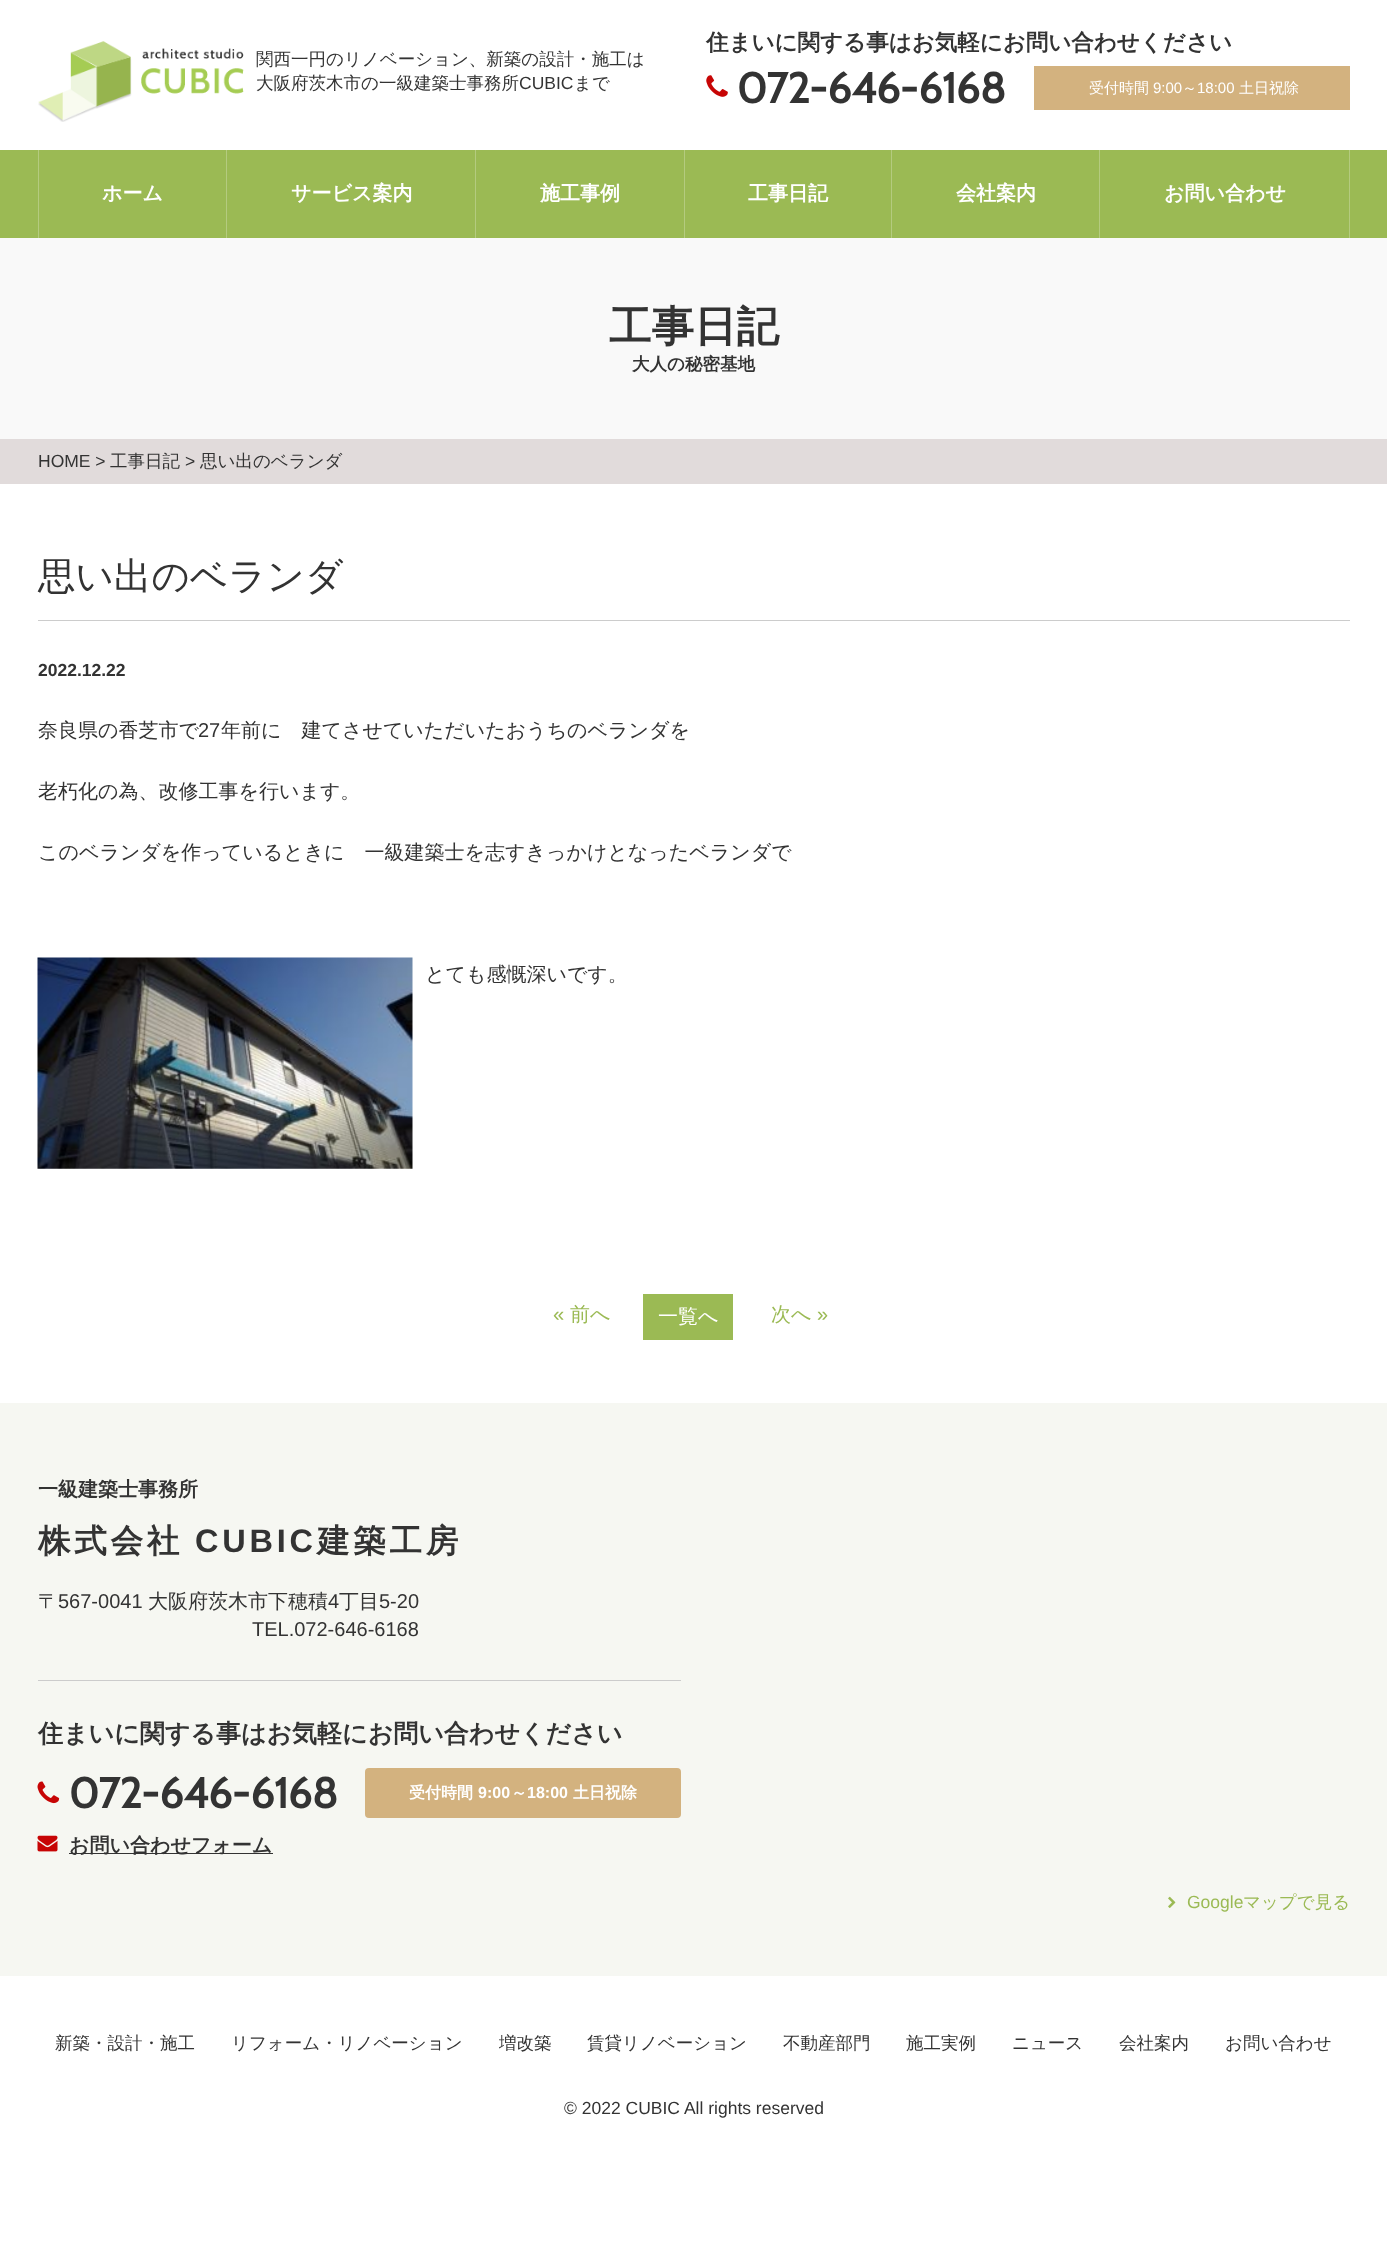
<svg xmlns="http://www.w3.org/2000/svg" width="1387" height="2245">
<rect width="100%" height="100%" fill="#fff"/>
<image x="38" y="41" width="206" height="81" href="media/1.png"/>
<text x="256" y="65" style="font-family:WenQuanYi Zen Hei;font-size:17.5px;font-weight:500;fill:#333">関西一円のリノベーション、新築の設計・施工は</text>
<text x="256" y="89" style="font-family:WenQuanYi Zen Hei;font-size:17.5px;font-weight:500;fill:#333">大阪府茨木市の一級建築士事務所</text>
<text x="519" y="89" style="font-family:Liberation Sans;font-size:17.5px;fill:#333">CUBIC</text>
<text x="574" y="89" style="font-family:WenQuanYi Zen Hei;font-size:17.5px;font-weight:500;fill:#333">まで</text>
<text x="706" y="50" style="font-family:WenQuanYi Zen Hei;font-size:22.5px;font-weight:bold;fill:#333">住まいに関する事はお気軽にお問い合わせください</text>
<image x="706" y="75" width="22" height="22" href="media/2.png"/>
<text x="737" y="103" style="font-family:Cabin;font-size:42.5px;font-weight:bold;fill:#333">072-646-6168</text>
<rect x="1034" y="66" width="316" height="44" fill="#d3b27f"/>
<text x="1089" y="93" style="font-family:WenQuanYi Zen Hei;font-size:15px;font-weight:500;fill:#fff">受付時間</text>
<text x="1153" y="93" style="font-family:Liberation Sans;font-size:15px;fill:#fff">9:00</text>
<text x="1182" y="93" style="font-family:WenQuanYi Zen Hei;font-size:15px;font-weight:500;fill:#fff">～</text>
<text x="1197" y="93" style="font-family:Liberation Sans;font-size:15px;fill:#fff">18:00</text>
<text x="1239" y="93" style="font-family:WenQuanYi Zen Hei;font-size:15px;font-weight:500;fill:#fff">土日祝除</text>
<rect y="150" width="1387" height="88" fill="#9bba54"/>
<rect x="226" y="150" width="1" height="88" fill="#b4cb7f"/>
<rect x="38" y="150" width="1" height="88" fill="#b4cb7f"/>
<text x="102" y="200" style="font-family:WenQuanYi Zen Hei;font-size:20px;font-weight:bold;fill:#fff">ホーム</text>
<rect x="475" y="150" width="1" height="88" fill="#b4cb7f"/>
<text x="291" y="200" style="font-family:WenQuanYi Zen Hei;font-size:20px;font-weight:bold;fill:#fff">サービス案内</text>
<rect x="684" y="150" width="1" height="88" fill="#b4cb7f"/>
<text x="540" y="200" style="font-family:WenQuanYi Zen Hei;font-size:20px;font-weight:bold;fill:#fff">施工事例</text>
<rect x="891" y="150" width="1" height="88" fill="#b4cb7f"/>
<text x="748" y="200" style="font-family:WenQuanYi Zen Hei;font-size:20px;font-weight:bold;fill:#fff">工事日記</text>
<rect x="1099" y="150" width="1" height="88" fill="#b4cb7f"/>
<text x="956" y="200" style="font-family:WenQuanYi Zen Hei;font-size:20px;font-weight:bold;fill:#fff">会社案内</text>
<rect x="1349" y="150" width="1" height="88" fill="#b4cb7f"/>
<text x="1164" y="200" style="font-family:WenQuanYi Zen Hei;font-size:20px;font-weight:bold;fill:#fff">お問い合わせ</text>
<rect y="238" width="1387" height="201" fill="#f9f9f9"/>
<text x="609" y="341" style="font-family:WenQuanYi Zen Hei;font-size:42.5px;font-weight:bold;fill:#333">工事日記</text>
<text x="632" y="370" style="font-family:WenQuanYi Zen Hei;font-size:17.5px;font-weight:bold;fill:#333">大人の秘密基地</text>
<rect y="439" width="1387" height="45" fill="#e1dbdb"/>
<text x="38" y="467" style="font-family:Liberation Sans;font-size:17.5px;fill:#333">HOME &gt;</text>
<text x="110" y="467" style="font-family:WenQuanYi Zen Hei;font-size:17.5px;font-weight:500;fill:#333">工事日記</text>
<text x="185" y="467" style="font-family:Liberation Sans;font-size:17.5px;fill:#333">&gt;</text>
<text x="200" y="467" style="font-family:WenQuanYi Zen Hei;font-size:17.5px;font-weight:500;fill:#333">思い出のベランダ</text>
<rect x="38" y="620" width="1312" height="1" fill="#ccc"/>
<text x="38" y="589" style="font-family:WenQuanYi Zen Hei;font-size:37.5px;font-weight:500;fill:#333">思い出のベランダ</text>
<text x="38" y="676" style="font-family:Liberation Sans;font-size:17.5px;font-weight:bold;fill:#333">2022.12.22</text>
<text x="38" y="737" style="font-family:WenQuanYi Zen Hei;font-size:20px;font-weight:500;fill:#333">奈良県の香芝市で</text>
<text x="198" y="737" style="font-family:Liberation Sans;font-size:20px;fill:#333">27</text>
<text x="221" y="737" style="font-family:WenQuanYi Zen Hei;font-size:20px;font-weight:500;fill:#333">年前に　建てさせていただいたおうちのベランダを</text>
<text x="38" y="798" style="font-family:WenQuanYi Zen Hei;font-size:20px;font-weight:500;fill:#333">老朽化の為、改修工事を行います。</text>
<text x="38" y="859" style="font-family:WenQuanYi Zen Hei;font-size:20px;font-weight:500;fill:#333">このベランダを作っているときに　一級建築士を志すきっかけとなったベランダで</text>
<image x="37" y="957" width="376" height="212" href="media/3.png"/>
<text x="425" y="981" style="font-family:WenQuanYi Zen Hei;font-size:20px;font-weight:500;fill:#333">とても感慨深いです。</text>
<text x="553" y="1321" style="font-family:Liberation Sans;font-size:20px;fill:#9bba54">«</text>
<text x="570" y="1321" style="font-family:WenQuanYi Zen Hei;font-size:20px;font-weight:500;fill:#9bba54">前へ</text>
<rect x="643" y="1294" width="90" height="46" fill="#9bba54"/>
<text x="658" y="1323" style="font-family:WenQuanYi Zen Hei;font-size:20px;font-weight:500;fill:#fff">一覧へ</text>
<text x="771" y="1321" style="font-family:WenQuanYi Zen Hei;font-size:20px;font-weight:500;fill:#9bba54">次へ</text>
<text x="817" y="1321" style="font-family:Liberation Sans;font-size:20px;fill:#9bba54">»</text>
<rect y="1403" width="1387" height="573" fill="#f6f7f2"/>
<rect x="38" y="1680" width="643" height="1" fill="#ccc"/>
<text x="38" y="1496" style="font-family:WenQuanYi Zen Hei;font-size:20px;font-weight:bold;fill:#333">一級建築士事務所</text>
<text x="38" y="1552" style="font-family:WenQuanYi Zen Hei;font-size:32.5px;font-weight:bold;letter-spacing:3.75px;fill:#333">株式会社</text>
<text x="195" y="1552" style="font-family:Liberation Sans;font-size:32.5px;font-weight:bold;letter-spacing:3.75px;fill:#333">CUBIC</text>
<text x="317" y="1552" style="font-family:WenQuanYi Zen Hei;font-size:32.5px;font-weight:bold;letter-spacing:3.75px;fill:#333">建築工房</text>
<text x="38" y="1608" style="font-family:WenQuanYi Zen Hei;font-size:20px;font-weight:500;fill:#333">〒</text>
<text x="58" y="1608" style="font-family:Liberation Sans;font-size:20px;fill:#333">567-0041</text>
<text x="148" y="1608" style="font-family:WenQuanYi Zen Hei;font-size:20px;font-weight:500;fill:#333">大阪府茨木市下穂積</text>
<text x="328" y="1608" style="font-family:Liberation Sans;font-size:20px;fill:#333">4</text>
<text x="339" y="1608" style="font-family:WenQuanYi Zen Hei;font-size:20px;font-weight:500;fill:#333">丁目</text>
<text x="379" y="1608" style="font-family:Liberation Sans;font-size:20px;fill:#333">5-20</text>
<text x="252" y="1636" style="font-family:Liberation Sans;font-size:20px;fill:#333">TEL.072-646-6168</text>
<text x="38" y="1742" style="font-family:WenQuanYi Zen Hei;font-size:25px;font-weight:bold;fill:#333">住まいに関する事はお気軽にお問い合わせください</text>
<image x="37" y="1781" width="23" height="23" href="media/4.png"/>
<text x="69" y="1808" style="font-family:Cabin;font-size:42.5px;font-weight:bold;fill:#333">072-646-6168</text>
<rect x="365" y="1768" width="316" height="50" rx="4" fill="#d3b27f"/>
<text x="409" y="1798" style="font-family:WenQuanYi Zen Hei;font-size:16px;font-weight:bold;fill:#fff">受付時間</text>
<text x="478" y="1798" style="font-family:Liberation Sans;font-size:16px;font-weight:bold;fill:#fff">9:00</text>
<text x="511" y="1798" style="font-family:WenQuanYi Zen Hei;font-size:16px;font-weight:bold;fill:#fff">～</text>
<text x="527" y="1798" style="font-family:Liberation Sans;font-size:16px;font-weight:bold;fill:#fff">18:00</text>
<text x="573" y="1798" style="font-family:WenQuanYi Zen Hei;font-size:16px;font-weight:bold;fill:#fff">土日祝除</text>
<image x="37" y="1835" width="21" height="17" href="media/5.png"/>
<rect x="69" y="1853" width="204" height="1" fill="#333"/>
<text x="69" y="1852" style="font-family:WenQuanYi Zen Hei;font-size:20px;font-weight:bold;fill:#333">お問い合わせフォーム</text>
<image x="1168" y="1896" width="8" height="12" href="media/6.png"/>
<text x="1187" y="1908" style="font-family:Liberation Sans;font-size:17.5px;fill:#9bba54">Google</text>
<text x="1243" y="1908" style="font-family:WenQuanYi Zen Hei;font-size:17.5px;font-weight:500;fill:#9bba54">マップで見る</text>
<text x="55" y="2049" style="font-family:WenQuanYi Zen Hei;font-size:17.5px;font-weight:500;fill:#333">新築・設計・施工</text>
<text x="231" y="2049" style="font-family:WenQuanYi Zen Hei;font-size:17.5px;font-weight:500;fill:#333">リフォーム・リノベーション</text>
<text x="499" y="2049" style="font-family:WenQuanYi Zen Hei;font-size:17.5px;font-weight:500;fill:#333">増改築</text>
<text x="587" y="2049" style="font-family:WenQuanYi Zen Hei;font-size:17.5px;font-weight:500;fill:#333">賃貸リノベーション</text>
<text x="783" y="2049" style="font-family:WenQuanYi Zen Hei;font-size:17.5px;font-weight:500;fill:#333">不動産部門</text>
<text x="906" y="2049" style="font-family:WenQuanYi Zen Hei;font-size:17.5px;font-weight:500;fill:#333">施工実例</text>
<text x="1012" y="2049" style="font-family:WenQuanYi Zen Hei;font-size:17.5px;font-weight:500;fill:#333">ニュース</text>
<text x="1119" y="2049" style="font-family:WenQuanYi Zen Hei;font-size:17.5px;font-weight:500;fill:#333">会社案内</text>
<text x="1225" y="2049" style="font-family:WenQuanYi Zen Hei;font-size:17.5px;font-weight:500;fill:#333">お問い合わせ</text>
<text x="564" y="2114" style="font-family:Liberation Sans;font-size:17.5px;fill:#333">© 2022 CUBIC All rights reserved</text>
</svg>
